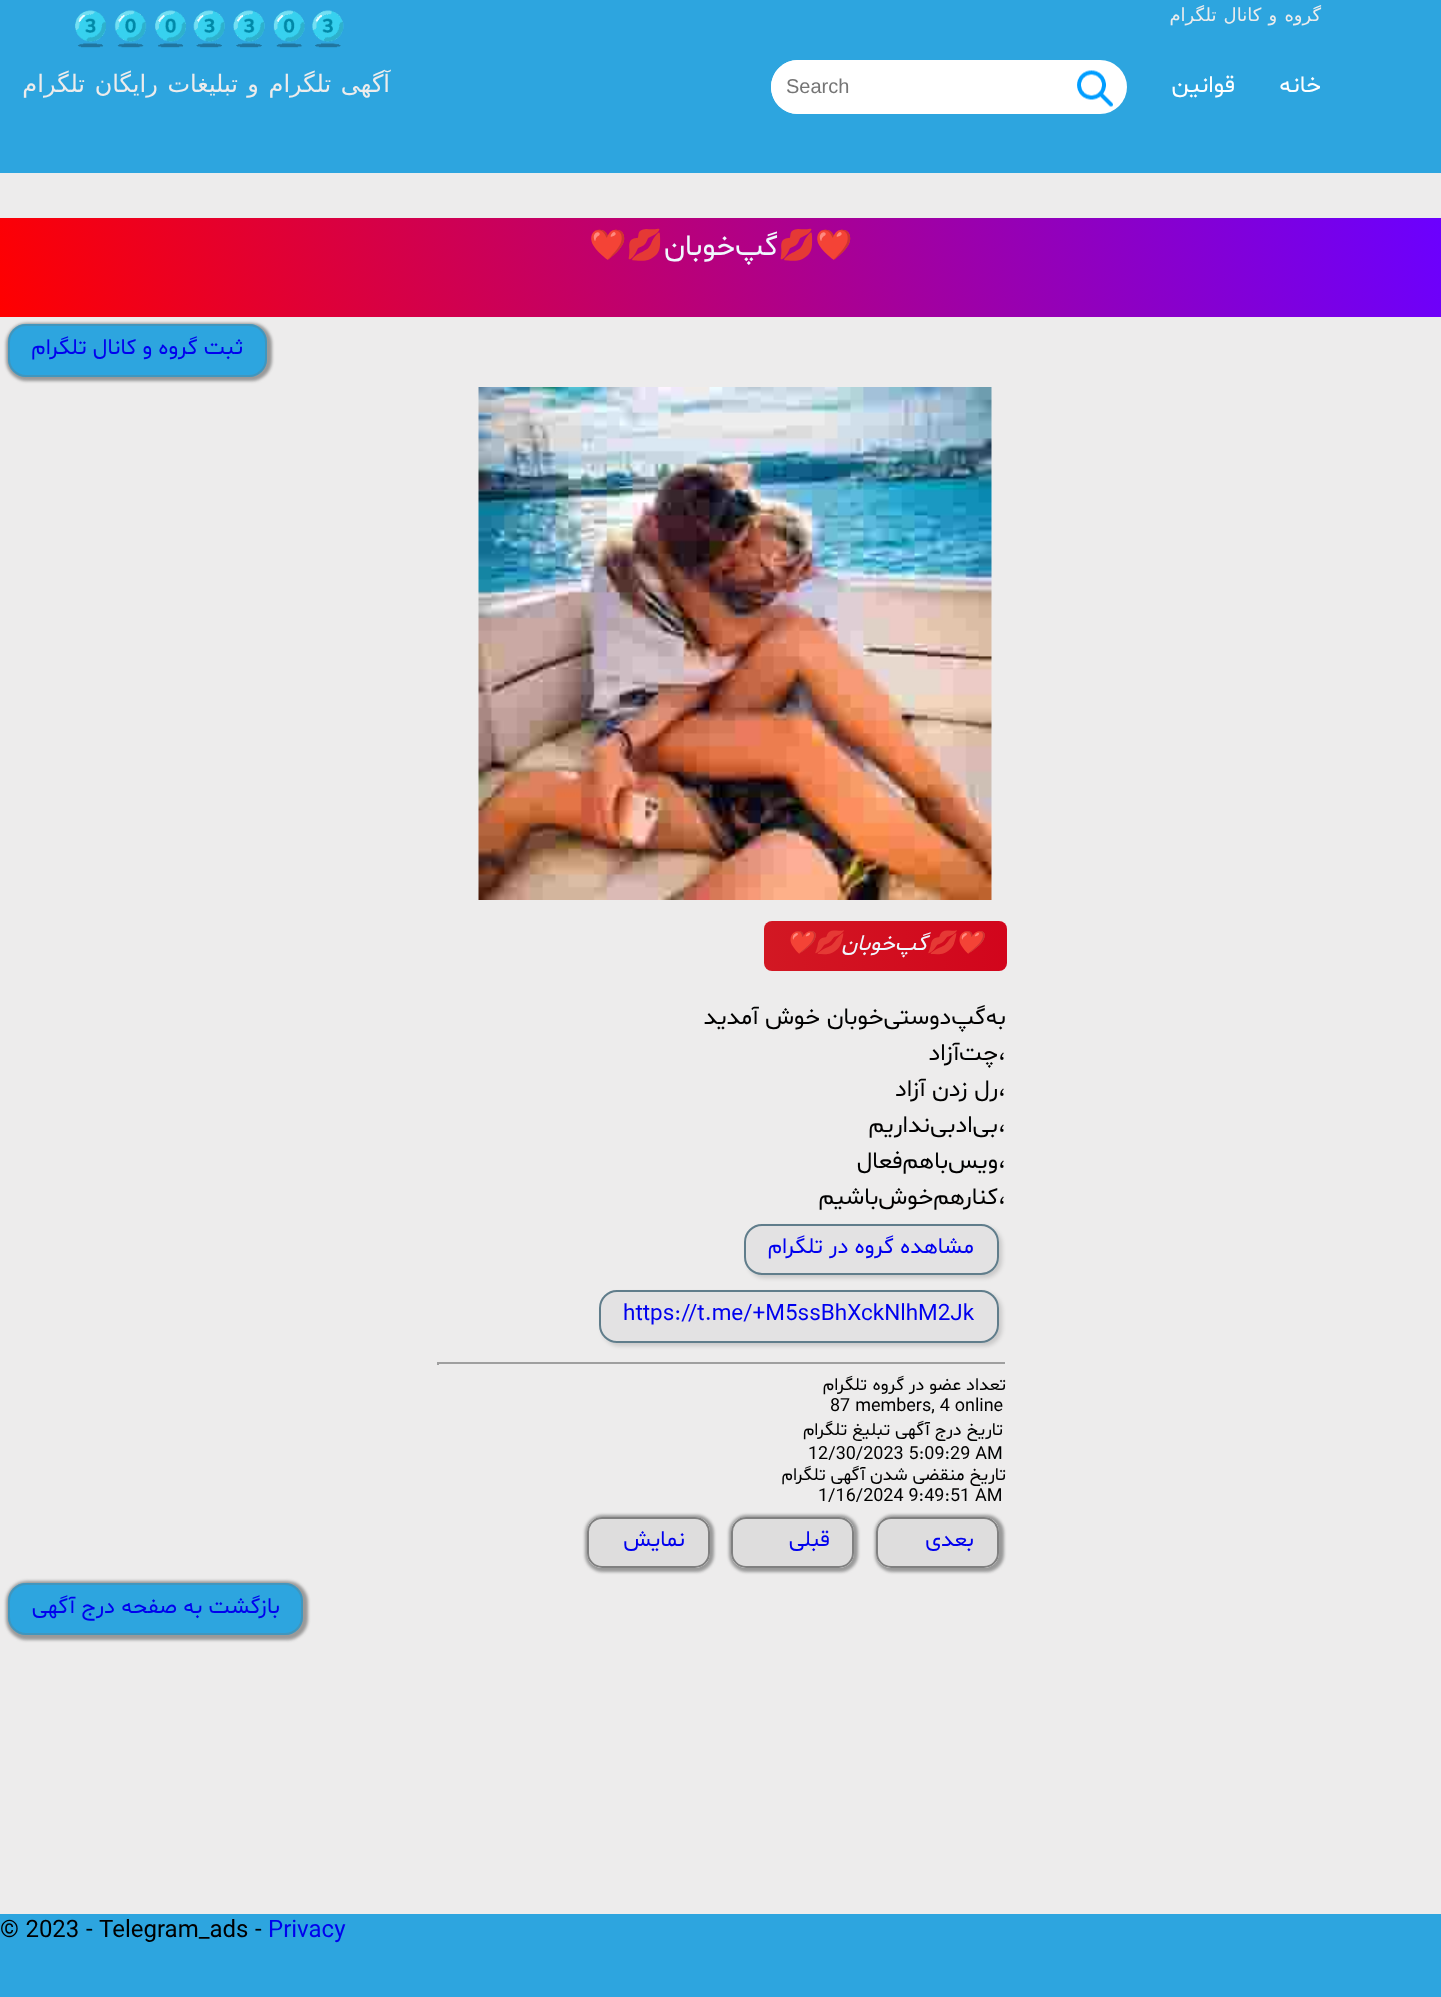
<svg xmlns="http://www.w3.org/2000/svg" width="1441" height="1997">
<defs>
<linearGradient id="g1" gradientUnits="userSpaceOnUse" x1="76" y1="514" x2="1365" y2="20"><stop offset="0" stop-color="#f00"/><stop offset="1" stop-color="#6b00ff"/></linearGradient>
<linearGradient id="g2" gradientUnits="userSpaceOnUse" x1="764" y1="946" x2="1007" y2="946"><stop offset="0" stop-color="#d21823"/><stop offset="1" stop-color="#d2051c"/></linearGradient>
<clipPath id="clip1"><path d="M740 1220h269v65h-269zm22 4h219c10 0 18 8 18 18v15c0 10-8 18-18 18h-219c-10 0-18-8-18-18v-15c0-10 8-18 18-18z" clip-rule="evenodd"/></clipPath>
<clipPath id="clip2"><path d="M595 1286h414v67h-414zm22 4h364c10 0 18 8 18 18v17c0 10-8 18-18 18h-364c-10 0-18-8-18-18v-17c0-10 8-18 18-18z" clip-rule="evenodd"/></clipPath>
<clipPath id="clip3"><path d="M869 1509h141v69h-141zm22 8h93c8.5 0 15 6.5 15 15v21c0 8.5-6.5 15-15 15h-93c-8.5 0-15-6.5-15-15v-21c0-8.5 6.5-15 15-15z" clip-rule="evenodd"/></clipPath>
<clipPath id="clip4"><path d="M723 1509h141v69h-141zm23 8h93c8.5 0 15 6.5 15 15v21c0 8.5-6.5 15-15 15h-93c-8.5 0-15-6.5-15-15v-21c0-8.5 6.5-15 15-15z" clip-rule="evenodd"/></clipPath>
<clipPath id="clip5"><path d="M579 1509h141v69h-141zm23 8h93c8.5 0 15 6.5 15 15v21c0 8.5-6.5 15-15 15h-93c-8.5 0-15-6.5-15-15v-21c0-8.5 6.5-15 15-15z" clip-rule="evenodd"/></clipPath>
</defs>
<rect width="100%" height="100%" fill="#edecec"/>
<rect width="1441" height="173" fill="#2da5df"/>
<text x="1321" y="21" word-spacing="1.5" style="font-family:DejaVu Sans;font-size:18px;direction:rtl;fill:#edecec">گروه و کانال تلگرام</text>
<image x="75" y="10" width="269" height="38" href="media/1.png"/>
<text x="390" y="92" word-spacing="2" style="font-family:DejaVu Sans;font-size:24px;direction:rtl;fill:#edecec">آگهی تلگرام و</text>
<text x="238" y="92" word-spacing="2" style="font-family:DejaVu Sans;font-size:24px;direction:rtl;fill:#edecec">تبلیغات رایگان تلگرام</text>
<text x="1321" y="92" style="font-family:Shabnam;font-size:24px;direction:rtl;fill:#fff">خانه</text>
<text x="1235" y="92" style="font-family:Shabnam;font-size:24px;direction:rtl;fill:#fff">قوانین</text>
<rect x="771" y="60" width="356" height="54" rx="27" fill="#fff"/>
<image x="1077" y="70" width="36" height="37" href="media/2.png"/>
<path d="M798 60h269v54h-269c-15 0-27-12-27-27c0-15 12-27 27-27z" fill="#fff"/>
<text x="786" y="93" style="font-family:Liberation Sans;font-size:20px;fill:#757575">Search</text>
<rect y="218" width="1441" height="99" fill="url(#g1)"/>
<text x="778" y="255" style="font-family:Noto Color Emoji;font-size:30px;fill:#f0f8ff">💋❤️</text>
<text x="778" y="255" style="font-family:Shabnam;font-size:30px;direction:rtl;fill:#f0f8ff">گپ‌خوبان</text>
<text x="589" y="255" style="font-family:Noto Color Emoji;font-size:30px;fill:#f0f8ff">❤️💋</text>
<rect x="6" y="323" width="266" height="58" rx="21" fill="#999" filter="blur(1.5px)"/>
<rect x="8" y="324" width="259" height="53" rx="18" fill="#2da5df"/>
<rect x="9" y="325" width="257" height="51" rx="17" fill="none" stroke="#607d8b63" stroke-width="2"/>
<text x="243" y="354" style="font-family:Shabnam;font-size:22.5px;direction:rtl;fill:#00e">ثبت گروه و کانال تلگرام</text>
<image x="478" y="387" width="514" height="513" href="media/3.png"/>
<rect x="764" y="921" width="243" height="50" rx="8" fill="url(#g2)"/>
<text x="927" y="950" style="font-family:Shabnam;font-size:22.5px;font-style:italic;direction:rtl;fill:#f0f8ff">گپ‌خوبان</text>
<text x="927" y="950" style="font-family:Noto Color Emoji;font-size:22.5px;font-style:italic;fill:#f0f8ff">💋❤️</text>
<text x="786" y="950" style="font-family:Noto Color Emoji;font-size:22.5px;font-style:italic;fill:#f0f8ff">❤️💋</text>
<text x="1006" y="1024" style="font-family:Shabnam;font-size:24px;direction:rtl;fill:#000">به‌گپ‌دوستی‌خوبان خوش آمدید</text>
<text x="998" y="1060" style="font-family:Shabnam;font-size:24px;fill:#000">،</text>
<text x="998" y="1060" style="font-family:Shabnam;font-size:24px;direction:rtl;fill:#000">چت‌آزاد</text>
<text x="998" y="1096" style="font-family:Shabnam;font-size:24px;fill:#000">،</text>
<text x="998" y="1096" style="font-family:Shabnam;font-size:24px;direction:rtl;fill:#000">رل‌ زدن ‌آزاد</text>
<text x="998" y="1132" style="font-family:Shabnam;font-size:24px;fill:#000">‌،</text>
<text x="998" y="1132" style="font-family:Shabnam;font-size:24px;direction:rtl;fill:#000">بی‌ادبی‌نداریم</text>
<text x="998" y="1168" style="font-family:Shabnam;font-size:24px;fill:#000">،</text>
<text x="998" y="1168" style="font-family:Shabnam;font-size:24px;direction:rtl;fill:#000">ویس‌باهم‌فعال</text>
<text x="998" y="1204" style="font-family:Shabnam;font-size:24px;fill:#000">،</text>
<text x="998" y="1204" style="font-family:Shabnam;font-size:24px;direction:rtl;fill:#000">کنارهم‌خوش‌باشیم</text>
<g clip-path="url(#clip1)">
<rect x="747" y="1227" width="255" height="51" rx="18" fill="#00000026" filter="blur(2px)"/>
</g>
<rect x="745" y="1225" width="253" height="49" rx="17" fill="#d2d3d461" stroke="#607d8b" stroke-width="2"/>
<text x="974" y="1253" style="font-family:Shabnam;font-size:22.5px;direction:rtl;fill:#00e">مشاهده گروه در تلگرام</text>
<g clip-path="url(#clip2)">
<rect x="602" y="1293" width="400" height="53" rx="18" fill="#00000026" filter="blur(2px)"/>
</g>
<rect x="600" y="1291" width="398" height="51" rx="17" fill="#d2d3d461" stroke="#607d8b" stroke-width="2"/>
<text x="623" y="1320" style="font-family:Shabnam;font-size:22.5px;fill:#00e">https://t.me/+M5ssBhXckNlhM2Jk</text>
<rect x="437" y="1362" width="570" height="2" fill="#9f9f9f"/>
<rect x="1005" y="1362" width="2" height="3" fill="#eee"/>
<rect x="437" y="1362" width="2" height="3" fill="#9f9f9f"/>
<text x="1006" y="1390" style="font-family:Shabnam;font-size:18px;direction:rtl;fill:#000">تعداد عضو در</text>
<text x="904" y="1390" style="font-family:Shabnam;font-size:18px;direction:rtl;fill:#000">گروه</text>
<text x="867" y="1390" style="font-family:Shabnam;font-size:18px;direction:rtl;fill:#000">تلگرام</text>
<text x="830" y="1411" style="font-family:Shabnam;font-size:18px;fill:#000">87 members, 4 online</text>
<text x="1003" y="1435" style="font-family:Shabnam;font-size:18px;direction:rtl;fill:#000">تاریخ درج آگهی تبلیغ تلگرام</text>
<text x="808" y="1459" style="font-family:Shabnam;font-size:18px;fill:#000">12/30/2023 5:09:29 AM</text>
<text x="1006" y="1480" style="font-family:Shabnam;font-size:18px;direction:rtl;fill:#000">تاریخ منقضی شدن آگهی تلگرام</text>
<text x="818" y="1501" style="font-family:Shabnam;font-size:18px;fill:#000">1/16/2024 9:49:51 AM</text>
<g clip-path="url(#clip3)">
<rect x="875" y="1515" width="129" height="57" rx="18" fill="#999" filter="blur(1.5px)"/>
</g>
<rect x="877" y="1518" width="121" height="49" rx="14" fill="#c7c7c766" stroke="#808080" stroke-width="2"/>
<text x="974" y="1546" style="font-family:Shabnam;font-size:22.5px;direction:rtl;fill:#00e">بعدی</text>
<g clip-path="url(#clip4)">
<rect x="729" y="1515" width="129" height="57" rx="18" fill="#999" filter="blur(1.5px)"/>
</g>
<rect x="732" y="1518" width="121" height="49" rx="14" fill="#c7c7c766" stroke="#808080" stroke-width="2"/>
<text x="830" y="1546" style="font-family:Shabnam;font-size:22.5px;direction:rtl;fill:#00e">قبلی</text>
<g clip-path="url(#clip5)">
<rect x="585" y="1515" width="129" height="57" rx="18" fill="#999" filter="blur(1.5px)"/>
</g>
<rect x="588" y="1518" width="121" height="49" rx="14" fill="#c7c7c766" stroke="#808080" stroke-width="2"/>
<text x="685" y="1546" style="font-family:Shabnam;font-size:22.5px;direction:rtl;fill:#00e">نمایش</text>
<rect x="6" y="1581" width="302" height="59" rx="21" fill="#999" filter="blur(1.5px)"/>
<rect x="8" y="1583" width="295" height="52" rx="18" fill="#2da5df"/>
<rect x="9" y="1584" width="293" height="50" rx="17" fill="none" stroke="#607d8b63" stroke-width="2"/>
<text x="280" y="1613" style="font-family:Shabnam;font-size:22.5px;direction:rtl;fill:#00e">بازگشت به صفحه درج آگهی</text>
<rect y="1914" width="1441" height="83" fill="#2da5df"/>
<text x="268" y="1937" style="font-family:Shabnam;font-size:24px;fill:#00e">Privacy</text>
<text x="0" y="1937" style="font-family:Shabnam;font-size:24px;fill:#000">© 2023 - Telegram_ads -</text>
</svg>
